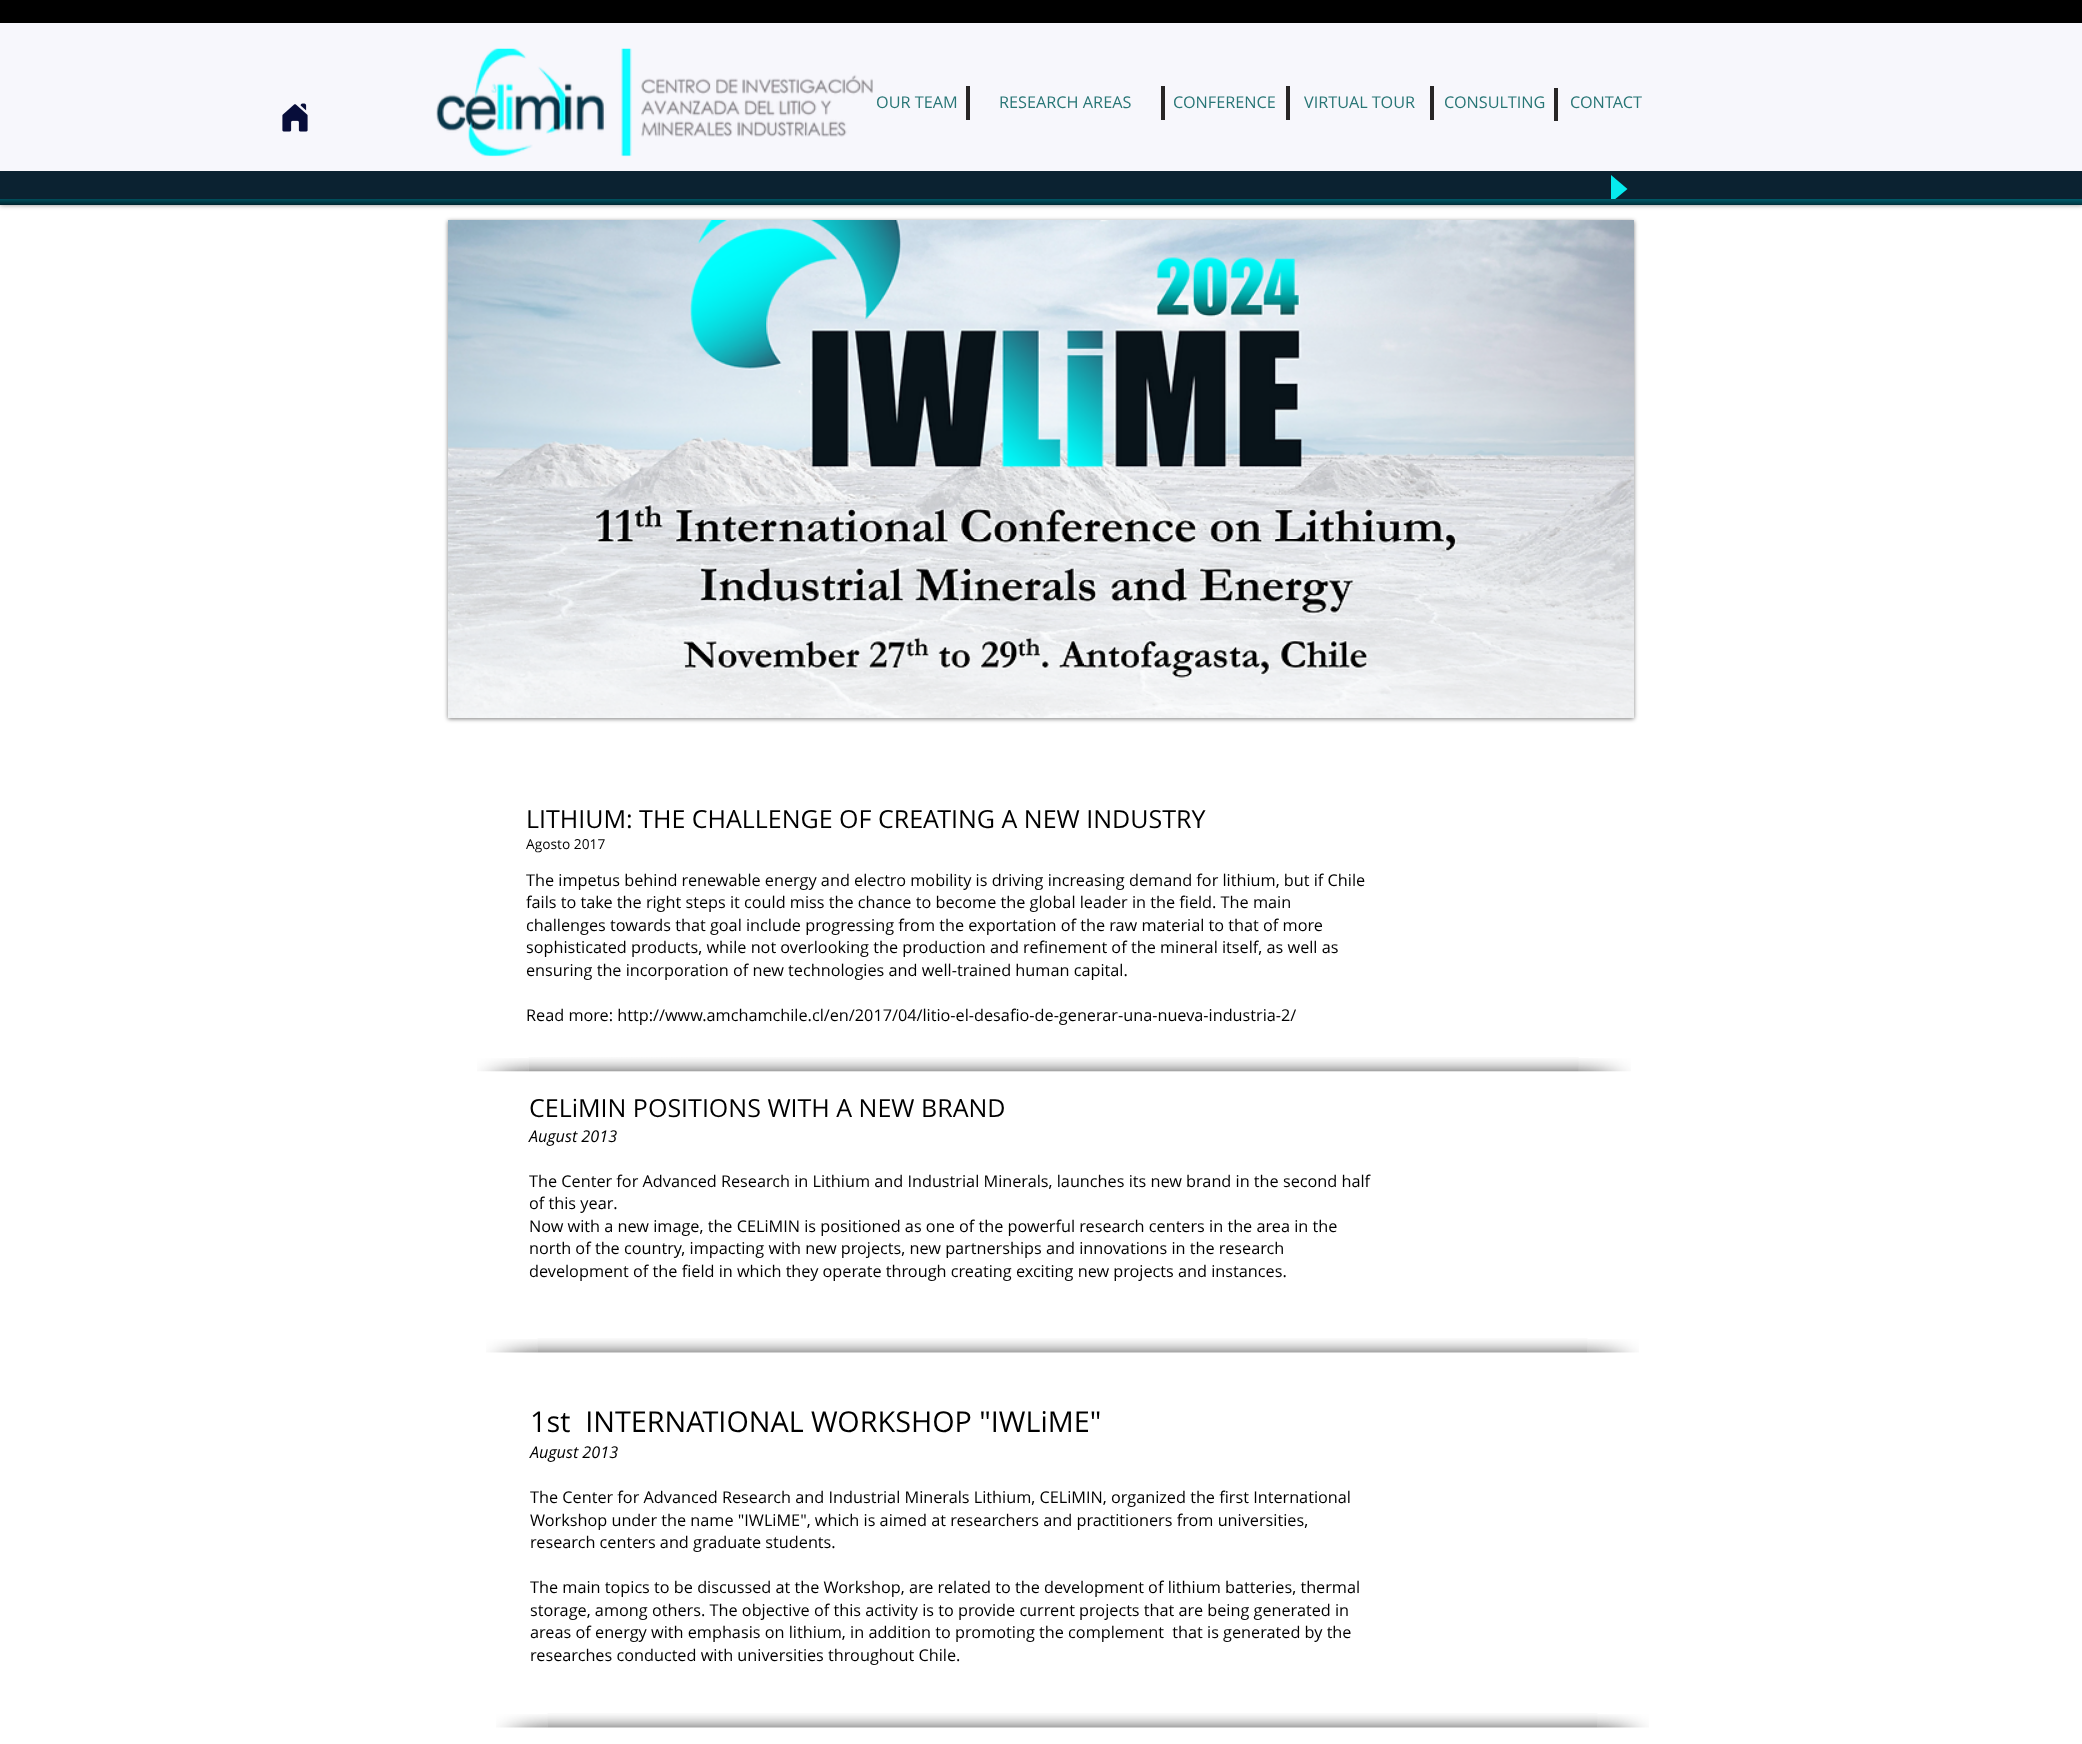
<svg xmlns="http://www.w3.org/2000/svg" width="2082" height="1744">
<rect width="100%" height="100%" fill="#fff"/>
<rect width="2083" height="205" fill="#00000075" filter="blur(2.5px)"/>
<rect y="23" width="2082" height="148" fill="#f7f7fc"/>
<rect width="2082" height="23" fill="#000"/>
<image x="282" y="103" width="26" height="29" href="media/1.png"/>
<image x="436" y="48" width="437" height="109" href="media/2.png"/>
<text x="876" y="108" style="font-family:Open Sans;font-size:16.25px;fill:#287676">OUR TEAM</text>
<rect x="966" y="86" width="4" height="34" fill="#282626"/>
<text x="999" y="108" style="font-family:Open Sans;font-size:16.25px;fill:#287676">RESEARCH AREAS</text>
<rect x="1161" y="86" width="4" height="34" fill="#282626"/>
<text x="1173" y="108" style="font-family:Open Sans;font-size:16.25px;fill:#287676">CONFERENCE</text>
<rect x="1286" y="86" width="4" height="34" fill="#282626"/>
<text x="1304" y="108" style="font-family:Open Sans;font-size:16.25px;fill:#287676">VIRTUAL TOUR</text>
<rect x="1430" y="86" width="4" height="34" fill="#282626"/>
<text x="1444" y="108" style="font-family:Open Sans;font-size:16.25px;fill:#287676">CONSULTING</text>
<rect x="1554" y="88" width="4" height="33" fill="#282626"/>
<text x="1570" y="108" style="font-family:Open Sans;font-size:16.25px;fill:#287676">CONTACT</text>
<rect y="171" width="2082" height="34" fill="#0b2231"/>
<path d="M1611 202.5v-27.5l16.5 14z" fill="#06ebef"/>
<image x="0" y="199" width="2082" height="6" href="media/3.png"/>
<rect x="448" y="221" width="1186" height="498" fill="#00000080" filter="blur(2px)"/>
<image x="448" y="220" width="1186" height="498" href="media/4.png"/>
<text x="526" y="828" style="font-family:Open Sans;font-size:25px;fill:#000">LITHIUM: THE CHALLENGE OF CREATING A NEW INDUSTRY</text>
<text x="526" y="849" style="font-family:Open Sans;font-size:13.75px;fill:#000">Agosto 2017</text>
<text x="526" y="886" style="font-family:Open Sans;font-size:16.25px;fill:#000">The impetus behind renewable energy and electro mobility is driving increasing demand for lithium, but if Chile</text>
<text x="526" y="908" style="font-family:Open Sans;font-size:16.25px;fill:#000">fails to take the right steps it could miss the chance to become the global leader in the field. The main</text>
<text x="526" y="931" style="font-family:Open Sans;font-size:16.25px;fill:#000">challenges towards that goal include progressing from the exportation of the raw material to that of more</text>
<text x="526" y="953" style="font-family:Open Sans;font-size:16.25px;fill:#000">sophisticated products, while not overlooking the production and refinement of the mineral itself, as well as</text>
<text x="526" y="976" style="font-family:Open Sans;font-size:16.25px;fill:#000">ensuring the incorporation of new technologies and well-trained human capital.</text>
<text x="526" y="1021" style="font-family:Open Sans;font-size:16.25px;fill:#000">Read more: http://www.amchamchile.cl/en/2017/04/litio-el-desafio-de-generar-una-nueva-industria-2/</text>
<image x="528" y="1057" width="1051" height="15" href="media/5.png"/>
<image x="477" y="1058" width="52" height="14" href="media/6.png"/>
<image x="1578" y="1058" width="53" height="14" href="media/7.png"/>
<text x="529" y="1117" style="font-family:Open Sans;font-size:25px;fill:#000">CELiMIN POSITIONS WITH A NEW BRAND</text>
<text x="529" y="1142" style="font-family:Open Sans;font-size:16.25px;font-style:italic;fill:#000">August 2013</text>
<text x="529" y="1187" style="font-family:Open Sans;font-size:16.25px;fill:#000">The Center for Advanced Research in Lithium and Industrial Minerals, launches its new brand in the second half</text>
<text x="529" y="1209" style="font-family:Open Sans;font-size:16.25px;fill:#000">of this year.</text>
<text x="529" y="1232" style="font-family:Open Sans;font-size:16.25px;fill:#000">Now with a new image, the CELiMIN is positioned as one of the powerful research centers in the area in the</text>
<text x="529" y="1254" style="font-family:Open Sans;font-size:16.25px;fill:#000">north of the country, impacting with new projects, new partnerships and innovations in the research</text>
<text x="529" y="1277" style="font-family:Open Sans;font-size:16.25px;fill:#000">development of the field in which they operate through creating exciting new projects and instances.</text>
<image x="537" y="1338" width="1051" height="15" href="media/8.png"/>
<image x="486" y="1339" width="52" height="14" href="media/9.png"/>
<image x="1587" y="1339" width="52" height="14" href="media/10.png"/>
<text x="530" y="1432" style="font-family:Open Sans;font-size:28.75px;fill:#000" xml:space="preserve">1st  INTERNATIONAL WORKSHOP "IWLiME"</text>
<text x="530" y="1458" style="font-family:Open Sans;font-size:16.25px;font-style:italic;fill:#000">August 2013</text>
<text x="530" y="1503" style="font-family:Open Sans;font-size:16.25px;fill:#000">The Center for Advanced Research and Industrial Minerals Lithium, CELiMIN, organized the first International</text>
<text x="530" y="1526" style="font-family:Open Sans;font-size:16.25px;fill:#000">Workshop under the name "IWLiME", which is aimed at researchers and practitioners from universities,</text>
<text x="530" y="1548" style="font-family:Open Sans;font-size:16.25px;fill:#000">research centers and graduate students.</text>
<text x="530" y="1593" style="font-family:Open Sans;font-size:16.25px;fill:#000">The main topics to be discussed at the Workshop, are related to the development of lithium batteries, thermal</text>
<text x="530" y="1616" style="font-family:Open Sans;font-size:16.25px;fill:#000">storage, among others. The objective of this activity is to provide current projects that are being generated in</text>
<text x="530" y="1638" style="font-family:Open Sans;font-size:16.25px;fill:#000" xml:space="preserve">areas of energy with emphasis on lithium, in addition to promoting the complement  that is generated by the</text>
<text x="530" y="1661" style="font-family:Open Sans;font-size:16.25px;fill:#000">researches conducted with universities throughout Chile.</text>
<image x="547" y="1713" width="1051" height="15" href="media/11.png"/>
<image x="496" y="1714" width="52" height="14" href="media/12.png"/>
<image x="1597" y="1714" width="52" height="14" href="media/10.png"/>
</svg>
